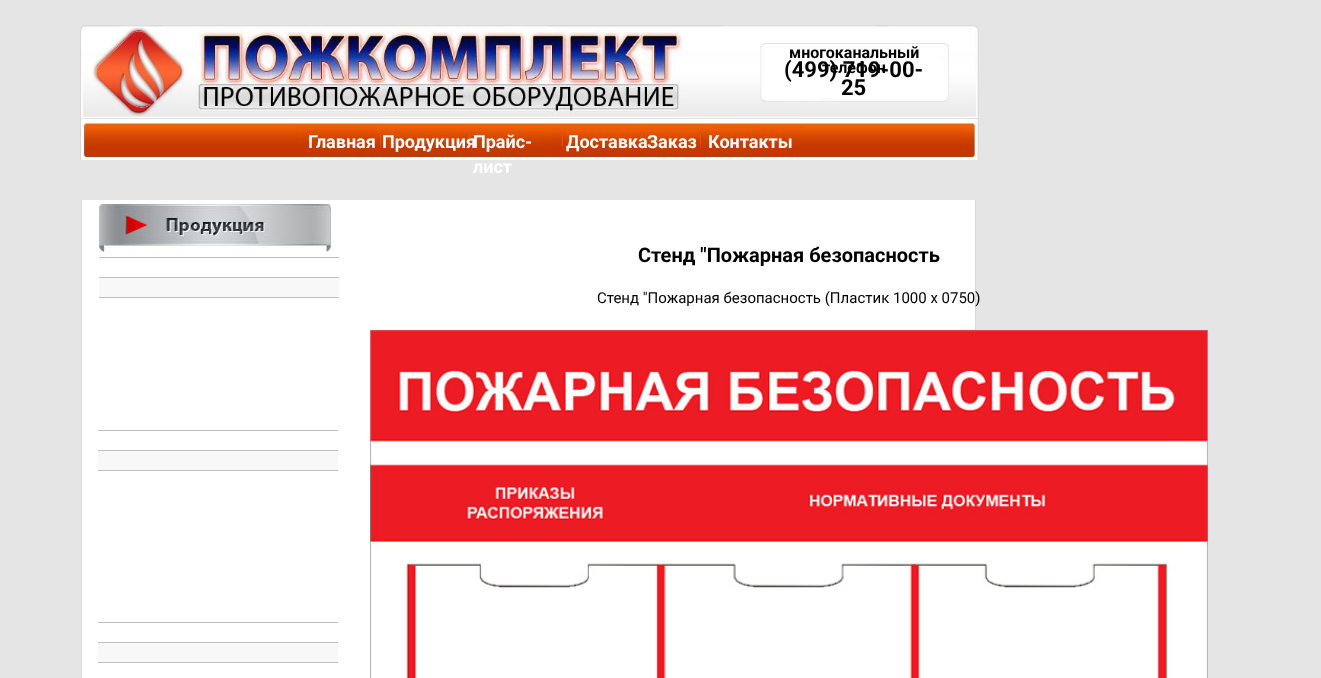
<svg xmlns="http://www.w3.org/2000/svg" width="1321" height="678">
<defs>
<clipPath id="clip1"><rect y="200" width="1321" height="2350"/></clipPath>
</defs>
<rect width="100%" height="100%" fill="#e5e5e5"/>
<image x="80" y="25" width="900" height="97" href="media/1.png"/>
<text x="789" y="58" style="font-family:Roboto;font-size:16px;font-weight:bold;fill:#000">многоканальный</text>
<text x="822" y="73" style="font-family:Roboto;font-size:16px;font-weight:bold;fill:#000">телефон</text>
<text x="784" y="77" style="font-family:Roboto;font-size:22px;font-weight:bold;fill:#000">(499) 719-00-</text>
<text x="841" y="95" style="font-family:Roboto;font-size:22px;font-weight:bold;fill:#000">25</text>
<image x="80" y="122" width="906" height="38" href="media/2.png"/>
<text x="308" y="148" style="font-family:Roboto;font-size:18px;font-weight:bold;fill:#fff">Главная</text>
<text x="382" y="148" style="font-family:Roboto;font-size:18px;font-weight:bold;fill:#fff">Продукция</text>
<text x="473" y="148" style="font-family:Roboto;font-size:18px;font-weight:bold;fill:#fff">Прайс-</text>
<text x="473" y="173" style="font-family:Roboto;font-size:18px;font-weight:bold;fill:#fff">лист</text>
<text x="566" y="148" style="font-family:Roboto;font-size:18px;font-weight:bold;fill:#fff">Доставка</text>
<text x="647" y="148" style="font-family:Roboto;font-size:18px;font-weight:bold;fill:#fff">Заказ</text>
<text x="708" y="148" style="font-family:Roboto;font-size:18px;font-weight:bold;fill:#fff">Контакты</text>
<rect x="82" y="200" width="893" height="478" fill="#fff"/>
<g clip-path="url(#clip1)">
<rect x="81.5" y="194.5" width="894" height="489" rx="4.5" fill="none" stroke="#dbdbdb"/>
</g>
<image x="99" y="204" width="232" height="48" href="media/3.png"/>
<rect x="99" y="257" width="240" height="1" fill="#c0c0c0"/>
<text x="638" y="262" style="font-family:Roboto;font-size:20px;font-weight:bold;fill:#000">Стенд "Пожарная безопасность</text>
<rect x="99" y="277" width="240" height="1" fill="#c0c0c0"/>
<rect x="99" y="278" width="240" height="19" fill="#f8f8f8"/>
<rect x="99" y="297" width="240" height="1" fill="#c0c0c0"/>
<text x="597" y="303" style="font-family:Roboto;font-size:15px;fill:#000">Стенд "Пожарная безопасность (Пластик 1000 x 0750)</text>
<rect x="98" y="430" width="240" height="1" fill="#c0c0c0"/>
<image x="370" y="330" width="838" height="348" href="media/4.png"/>
<rect x="98" y="450" width="240" height="1" fill="#c0c0c0"/>
<rect x="98" y="451" width="240" height="19" fill="#f8f8f8"/>
<rect x="98" y="470" width="240" height="1" fill="#c0c0c0"/>
<rect x="98" y="622" width="240" height="1" fill="#c0c0c0"/>
<rect x="98" y="642" width="240" height="1" fill="#c0c0c0"/>
<rect x="98" y="643" width="240" height="19" fill="#f8f8f8"/>
<rect x="98" y="662" width="240" height="1" fill="#c0c0c0"/>
</svg>
